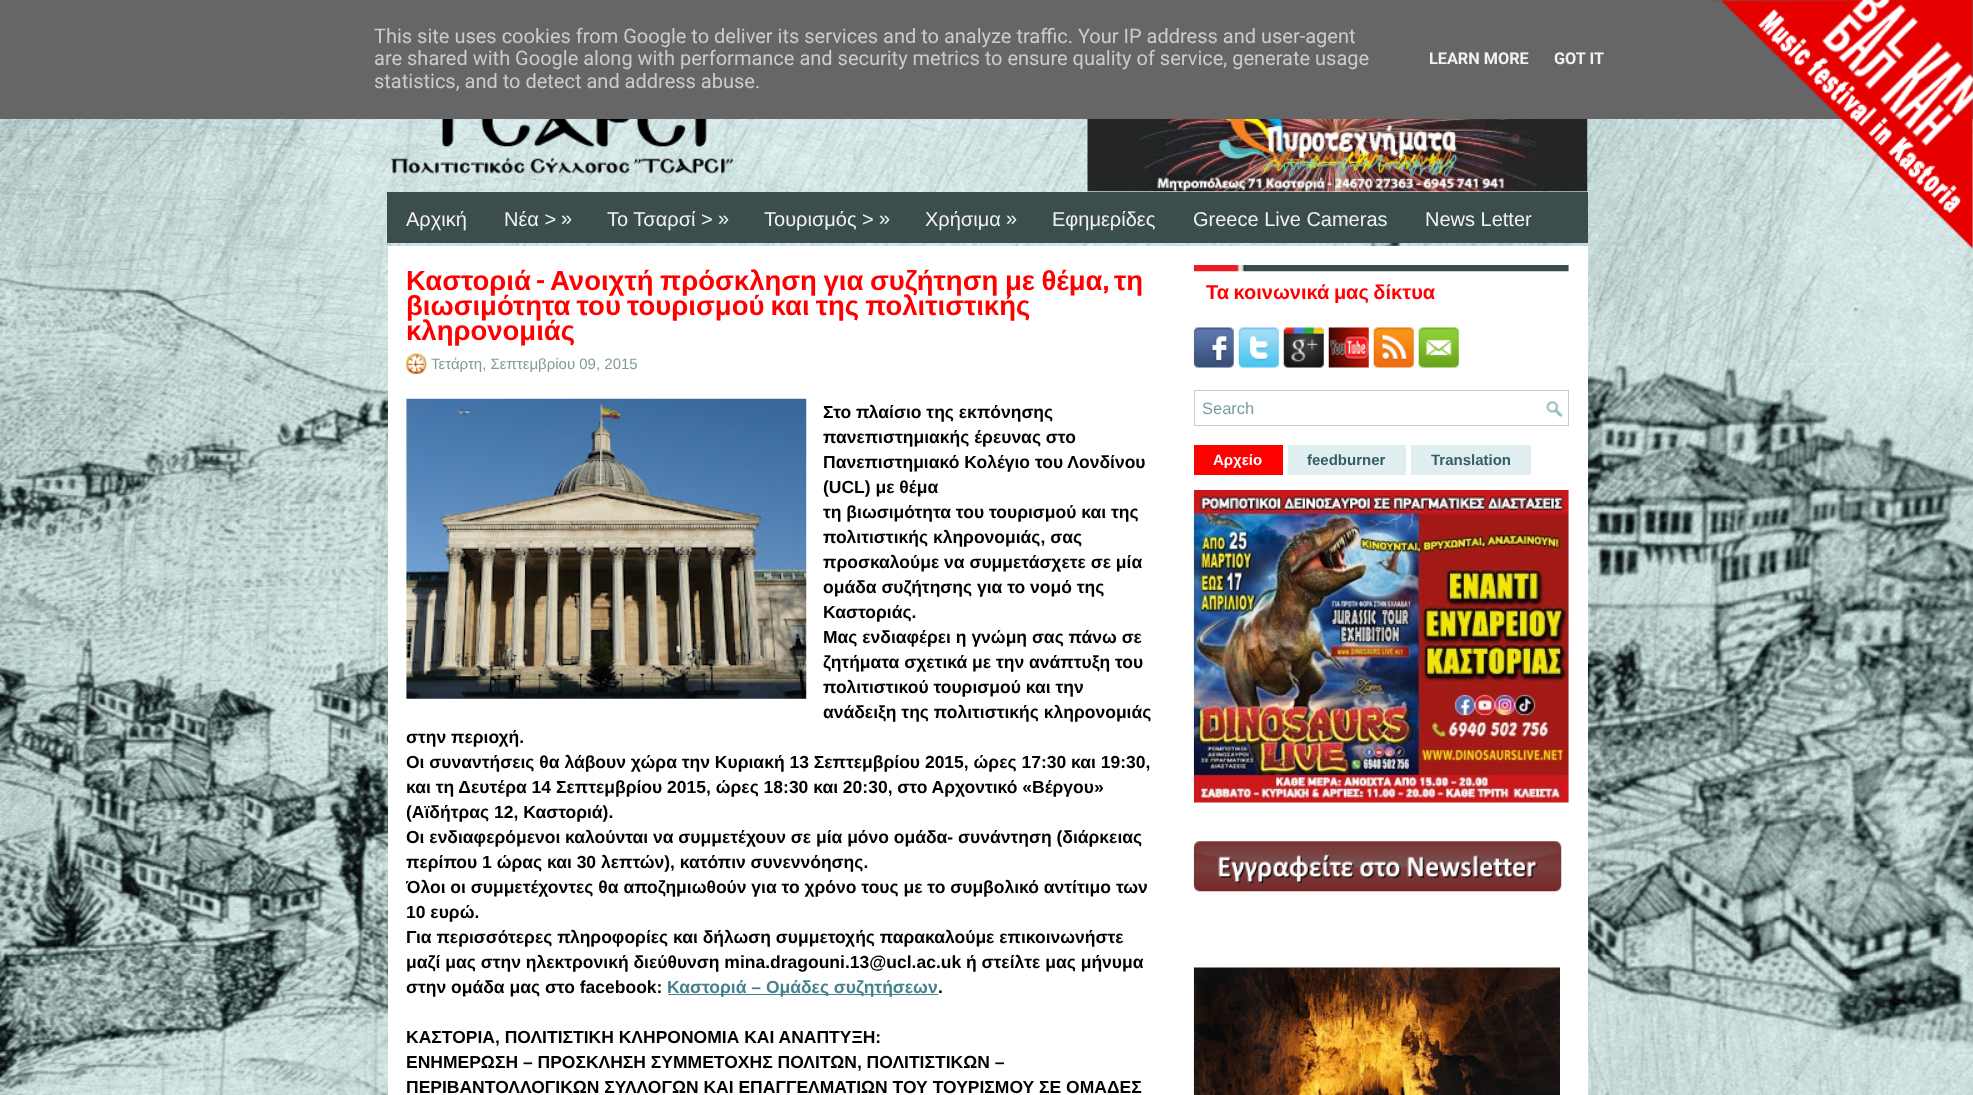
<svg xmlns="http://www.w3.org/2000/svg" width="1973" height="1095">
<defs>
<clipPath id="clip1"><rect x="406" y="265" width="769" height="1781"/></clipPath>
</defs>
<rect width="100%" height="100%" fill="#fff"/>
<image x="0" y="119" width="1973" height="976" href="media/1.png"/>
<rect width="1973" height="119" fill="#666"/>
<text x="374" y="43" style="font-family:Roboto;font-size:20px;fill:#ccc">This site uses cookies from Google to deliver its services and to analyze traffic. Your IP address and user-agent</text>
<text x="374" y="65" style="font-family:Roboto;font-size:20px;fill:#ccc">are shared with Google along with performance and security metrics to ensure quality of service, generate usage</text>
<text x="374" y="88" style="font-family:Roboto;font-size:20px;fill:#ccc">statistics, and to detect and address abuse.</text>
<text x="1429" y="64" style="font-family:Roboto;font-size:16.25px;font-weight:bold;fill:#f2f2f2">LEARN MORE</text>
<text x="1554" y="64" style="font-family:Roboto;font-size:16.25px;font-weight:bold;fill:#f2f2f2">GOT IT</text>
<image x="391" y="119" width="343" height="55" href="media/2.png"/>
<image x="1087" y="119" width="501" height="73" href="media/3.png"/>
<rect x="387" y="192" width="1201" height="51" fill="#3b4d4d"/>
<text x="406" y="226" style="font-family:Liberation Sans;font-size:20px;fill:#f2f2f2">Αρχική</text>
<text x="504" y="226" style="font-family:Liberation Sans;font-size:20px;fill:#f2f2f2">Νέα &gt;</text>
<text x="561" y="225" style="font-family:Liberation Sans;font-size:20px;fill:#f2f2f2">»</text>
<text x="607" y="226" style="font-family:Liberation Sans;font-size:20px;fill:#f2f2f2">Το Τσαρσί &gt;</text>
<text x="718" y="225" style="font-family:Liberation Sans;font-size:20px;fill:#f2f2f2">»</text>
<text x="764" y="226" style="font-family:Liberation Sans;font-size:20px;fill:#f2f2f2">Τουρισμός &gt;</text>
<text x="879" y="225" style="font-family:Liberation Sans;font-size:20px;fill:#f2f2f2">»</text>
<text x="925" y="226" style="font-family:Liberation Sans;font-size:20px;fill:#f2f2f2">Χρήσιμα</text>
<text x="1006" y="225" style="font-family:Liberation Sans;font-size:20px;fill:#f2f2f2">»</text>
<text x="1052" y="226" style="font-family:Liberation Sans;font-size:20px;fill:#f2f2f2">Εφημερίδες</text>
<text x="1193" y="226" style="font-family:Liberation Sans;font-size:20px;fill:#f2f2f2">Greece Live Cameras</text>
<text x="1425" y="226" style="font-family:Liberation Sans;font-size:20px;fill:#f2f2f2">News Letter</text>
<rect x="388" y="246" width="1200" height="849" fill="#fff"/>
<text x="406" y="290" style="font-family:Liberation Sans;font-size:27.5px;font-weight:bold;fill:#f00">Καστοριά</text>
<text x="536" y="290" style="font-family:Oswald;font-size:27.5px;font-weight:bold;fill:#f00">-</text>
<text x="550" y="290" word-spacing="-1" style="font-family:Liberation Sans;font-size:27.5px;font-weight:bold;fill:#f00">Ανοιχτή πρόσκληση για συζήτηση με θέμα</text>
<text x="1114" y="290" style="font-family:Liberation Sans;font-size:27.5px;font-weight:bold;fill:#f00">τη</text>
<text x="1103" y="290" style="font-family:Oswald;font-size:27.5px;font-weight:bold;fill:#f00">,</text>
<text x="406" y="315" word-spacing="-1.5" style="font-family:Liberation Sans;font-size:27.5px;font-weight:bold;fill:#f00">βιωσιμότητα του τουρισμού και της πολιτιστικής</text>
<text x="406" y="340" style="font-family:Liberation Sans;font-size:27.5px;font-weight:bold;fill:#f00">κληρονομιάς</text>
<image x="406" y="353" width="21" height="21" href="media/4.png"/>
<text x="431" y="369" style="font-family:Liberation Sans;font-size:15px;fill:#83999c">Τετάρτη, Σεπτεμβρίου 09, 2015</text>
<image x="406" y="398" width="401" height="301" href="media/5.png"/>
<text x="823" y="418" style="font-family:Liberation Sans;font-size:17.5px;font-weight:bold;fill:#000">Στο πλαίσιο της εκπόνησης</text>
<text x="823" y="443" style="font-family:Liberation Sans;font-size:17.5px;font-weight:bold;fill:#000">πανεπιστημιακής έρευνας στο</text>
<text x="823" y="468" style="font-family:Liberation Sans;font-size:17.5px;font-weight:bold;fill:#000">Πανεπιστημιακό Κολέγιο του Λονδίνου</text>
<text x="823" y="493" style="font-family:Liberation Sans;font-size:17.5px;font-weight:bold;fill:#000">(UCL) με θέμα</text>
<text x="823" y="518" style="font-family:Liberation Sans;font-size:17.5px;font-weight:bold;fill:#000">τη βιωσιμότητα του τουρισμού και της</text>
<text x="823" y="543" style="font-family:Liberation Sans;font-size:17.5px;font-weight:bold;fill:#000">πολιτιστικής κληρονομιάς, σας</text>
<text x="823" y="568" style="font-family:Liberation Sans;font-size:17.5px;font-weight:bold;fill:#000">προσκαλούμε να συμμετάσχετε σε μία</text>
<text x="823" y="593" style="font-family:Liberation Sans;font-size:17.5px;font-weight:bold;fill:#000">ομάδα συζήτησης για το νομό της</text>
<text x="823" y="618" style="font-family:Liberation Sans;font-size:17.5px;font-weight:bold;fill:#000">Καστοριάς.</text>
<text x="823" y="643" style="font-family:Liberation Sans;font-size:17.5px;font-weight:bold;fill:#000">Μας ενδιαφέρει η γνώμη σας πάνω σε</text>
<text x="823" y="668" style="font-family:Liberation Sans;font-size:17.5px;font-weight:bold;fill:#000">ζητήματα σχετικά με την ανάπτυξη του</text>
<text x="823" y="693" style="font-family:Liberation Sans;font-size:17.5px;font-weight:bold;fill:#000">πολιτιστικού τουρισμού και την</text>
<text x="823" y="718" style="font-family:Liberation Sans;font-size:17.5px;font-weight:bold;fill:#000">ανάδειξη της πολιτιστικής κληρονομιάς</text>
<text x="406" y="743" style="font-family:Liberation Sans;font-size:17.5px;font-weight:bold;fill:#000">στην περιοχή.</text>
<text x="406" y="768" style="font-family:Liberation Sans;font-size:17.5px;font-weight:bold;fill:#000">Οι συναντήσεις θα λάβουν χώρα την Κυριακή 13 Σεπτεμβρίου 2015, ώρες 17:30 και 19:30,</text>
<text x="406" y="793" style="font-family:Liberation Sans;font-size:17.5px;font-weight:bold;fill:#000">και τη Δευτέρα 14 Σεπτεμβρίου 2015, ώρες 18:30 και 20:30, στο Αρχοντικό «Βέργου»</text>
<text x="406" y="818" style="font-family:Liberation Sans;font-size:17.5px;font-weight:bold;fill:#000">(Αϊδήτρας 12, Καστοριά).</text>
<text x="406" y="843" style="font-family:Liberation Sans;font-size:17.5px;font-weight:bold;fill:#000">Οι ενδιαφερόμενοι καλούνται να συμμετέχουν σε μία μόνο ομάδα- συνάντηση (διάρκειας</text>
<text x="406" y="868" style="font-family:Liberation Sans;font-size:17.5px;font-weight:bold;fill:#000">περίπου 1 ώρας και 30 λεπτών), κατόπιν συνεννόησης.</text>
<g clip-path="url(#clip1)">
<text x="406" y="893" style="font-family:Liberation Sans;font-size:17.5px;font-weight:bold;fill:#000">Όλοι οι συμμετέχοντες θα αποζημιωθούν για το χρόνο τους με το συμβολικό αντίτιμο των</text>
</g>
<text x="406" y="918" style="font-family:Liberation Sans;font-size:17.5px;font-weight:bold;fill:#000">10 ευρώ.</text>
<text x="406" y="943" style="font-family:Liberation Sans;font-size:17.5px;font-weight:bold;fill:#000">Για περισσότερες πληροφορίες και δήλωση συμμετοχής παρακαλούμε επικοινωνήστε</text>
<text x="406" y="968" style="font-family:Liberation Sans;font-size:17.5px;font-weight:bold;fill:#000">μαζί μας στην ηλεκτρονική διεύθυνση mina.dragouni.13@ucl.ac.uk ή στείλτε μας μήνυμα</text>
<text x="406" y="993" style="font-family:Liberation Sans;font-size:17.5px;font-weight:bold;fill:#000">στην ομάδα μας στο facebook:</text>
<rect x="668" y="994" width="270" height="1" fill="#45818d"/>
<text x="667" y="993" style="font-family:Liberation Sans;font-size:17.5px;font-weight:bold;fill:#45818d">Καστοριά – Ομάδες συζητήσεων</text>
<text x="938" y="993" style="font-family:Liberation Sans;font-size:17.5px;font-weight:bold;fill:#000">.</text>
<text x="406" y="1043" style="font-family:Liberation Sans;font-size:17.5px;font-weight:bold;fill:#000">ΚΑΣΤΟΡΙΑ, ΠΟΛΙΤΙΣΤΙΚΗ ΚΛΗΡΟΝΟΜΙΑ ΚΑΙ ΑΝΑΠΤΥΞΗ:</text>
<text x="406" y="1068" style="font-family:Liberation Sans;font-size:17.5px;font-weight:bold;fill:#000">ΕΝΗΜΕΡΩΣΗ – ΠΡΟΣΚΛΗΣΗ ΣΥΜΜΕΤΟΧΗΣ ΠΟΛΙΤΩΝ, ΠΟΛΙΤΙΣΤΙΚΩΝ –</text>
<text x="406" y="1093" style="font-family:Liberation Sans;font-size:17.5px;font-weight:bold;fill:#000">ΠΕΡΙΒΑΝΤΟΛΛΟΓΙΚΩΝ ΣΥΛΛΟΓΩΝ ΚΑΙ ΕΠΑΓΓΕΛΜΑΤΙΩΝ ΤΟΥ ΤΟΥΡΙΣΜΟΥ ΣΕ ΟΜΑΔΕΣ</text>
<image x="1193" y="265" width="376" height="7" href="media/6.png"/>
<text x="1206" y="299" word-spacing="-1" style="font-family:Liberation Sans;font-size:20px;font-weight:bold;fill:#f00">Τα κοινωνικά μας δίκτυα</text>
<image x="1193" y="327" width="41" height="41" href="media/7.png"/>
<image x="1238" y="327" width="41" height="41" href="media/8.png"/>
<image x="1283" y="327" width="41" height="41" href="media/9.png"/>
<image x="1328" y="327" width="41" height="41" href="media/10.png"/>
<image x="1373" y="327" width="41" height="41" href="media/11.png"/>
<image x="1418" y="327" width="41" height="41" href="media/12.png"/>
<image x="1546" y="401" width="17" height="17" href="media/13.png"/>
<rect x="1194.5" y="390.5" width="374" height="35" fill="none" stroke="#bdd1d0"/>
<text x="1202" y="414" style="font-family:Liberation Sans;font-size:16.5px;fill:#7a9c9c">Search</text>
<image x="1711" y="0" width="262" height="249" href="media/14.png"/>
<image x="1193" y="490" width="376" height="313" href="media/15.png"/>
<image x="1193" y="841" width="369" height="51" href="media/16.png"/>
<image x="1193" y="967" width="367" height="128" href="media/17.png"/>
<rect x="1194" y="445" width="89" height="30" fill="#f00"/>
<text x="1213" y="465" style="font-family:Liberation Sans;font-size:15px;font-weight:bold;fill:#fff">Αρχείο</text>
<rect x="1288" y="445" width="118" height="30" fill="#e0eef0"/>
<text x="1307" y="465" style="font-family:Liberation Sans;font-size:15px;font-weight:bold;fill:#345d65">feedburner</text>
<rect x="1411" y="445" width="120" height="30" fill="#e0eef0"/>
<text x="1431" y="465" style="font-family:Liberation Sans;font-size:15px;font-weight:bold;fill:#345d65">Translation</text>
</svg>
